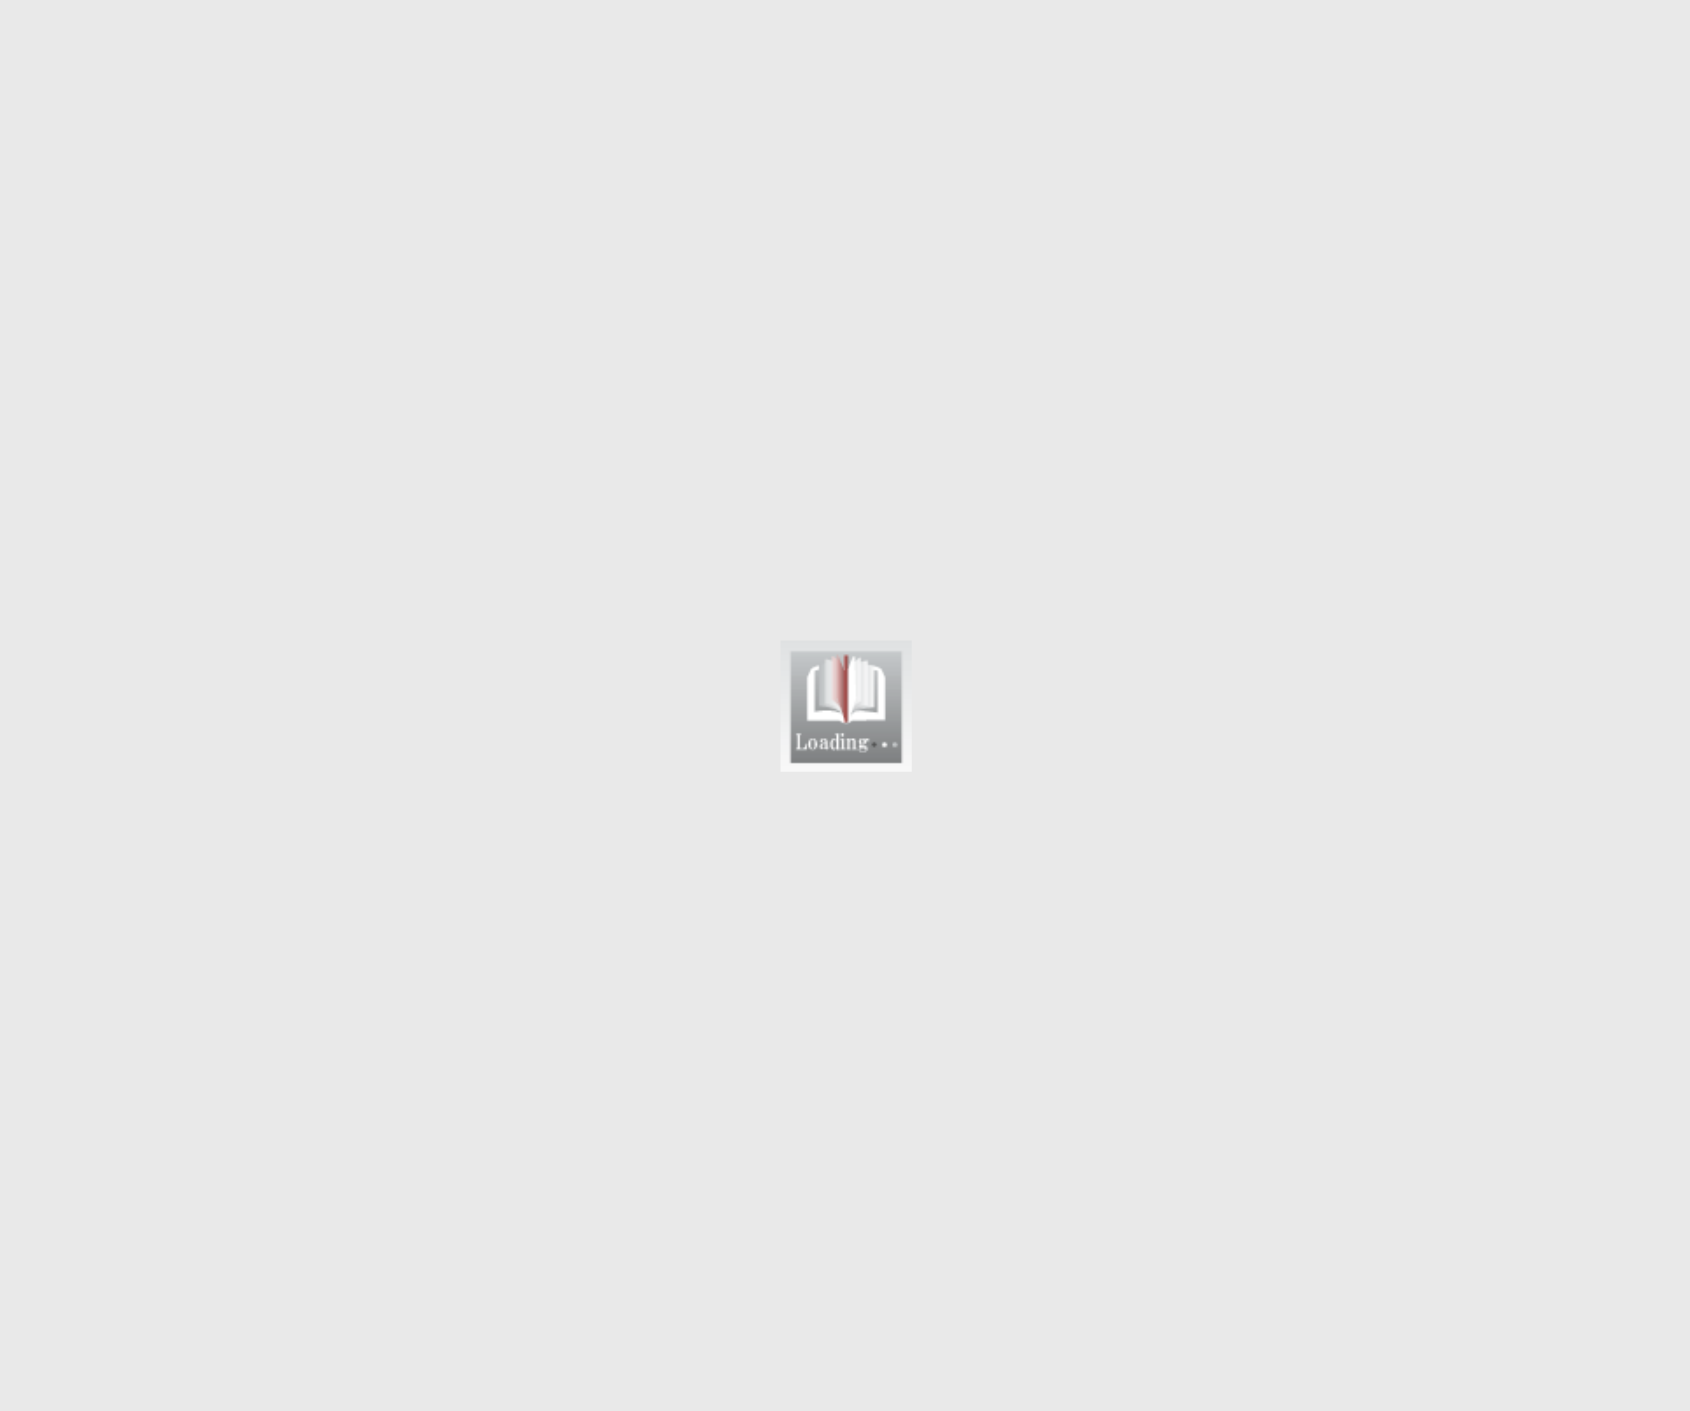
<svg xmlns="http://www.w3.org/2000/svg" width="1690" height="1411">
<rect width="100%" height="100%" fill="#e9e9e9"/>
<image x="780" y="640" width="132" height="132" href="media/1.png"/>
</svg>
